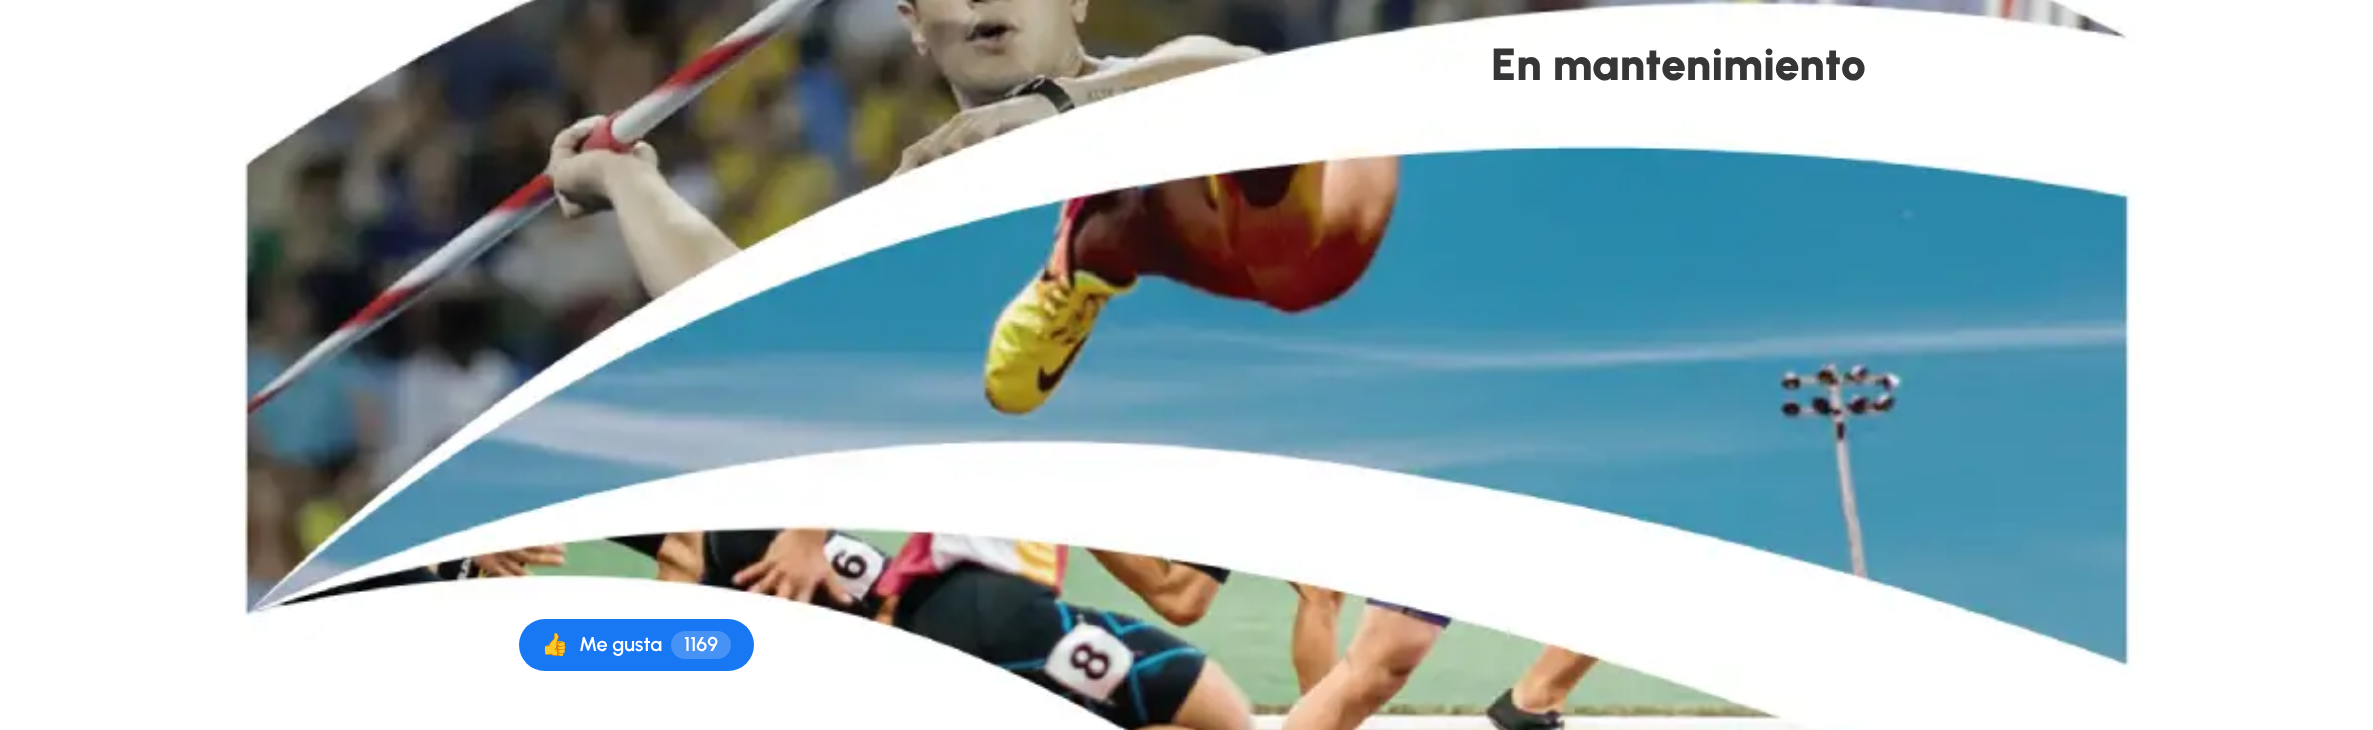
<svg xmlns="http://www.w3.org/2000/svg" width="2373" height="730">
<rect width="100%" height="100%" fill="#fff"/>
<image x="238" y="0" width="1902" height="730" href="media/1.png"/>
<text x="1491" y="80" style="font-family:Urbanist;font-size:45px;font-weight:900;fill:#363636">En mantenimiento</text>
<rect x="519" y="619" width="235" height="52" rx="26" fill="#1877f2"/>
<text x="541" y="652" style="font-family:Noto Color Emoji;font-size:22px;font-weight:bold;fill:#fff">👍</text>
<text x="579" y="651" style="font-family:Urbanist;font-size:20px;font-weight:600;fill:#fff">Me gusta</text>
<rect x="671" y="631" width="60" height="28" rx="14" fill="#4692f5"/>
<text x="684" y="651" style="font-family:Urbanist;font-size:20px;font-weight:600;fill:#fff">1169</text>
</svg>
